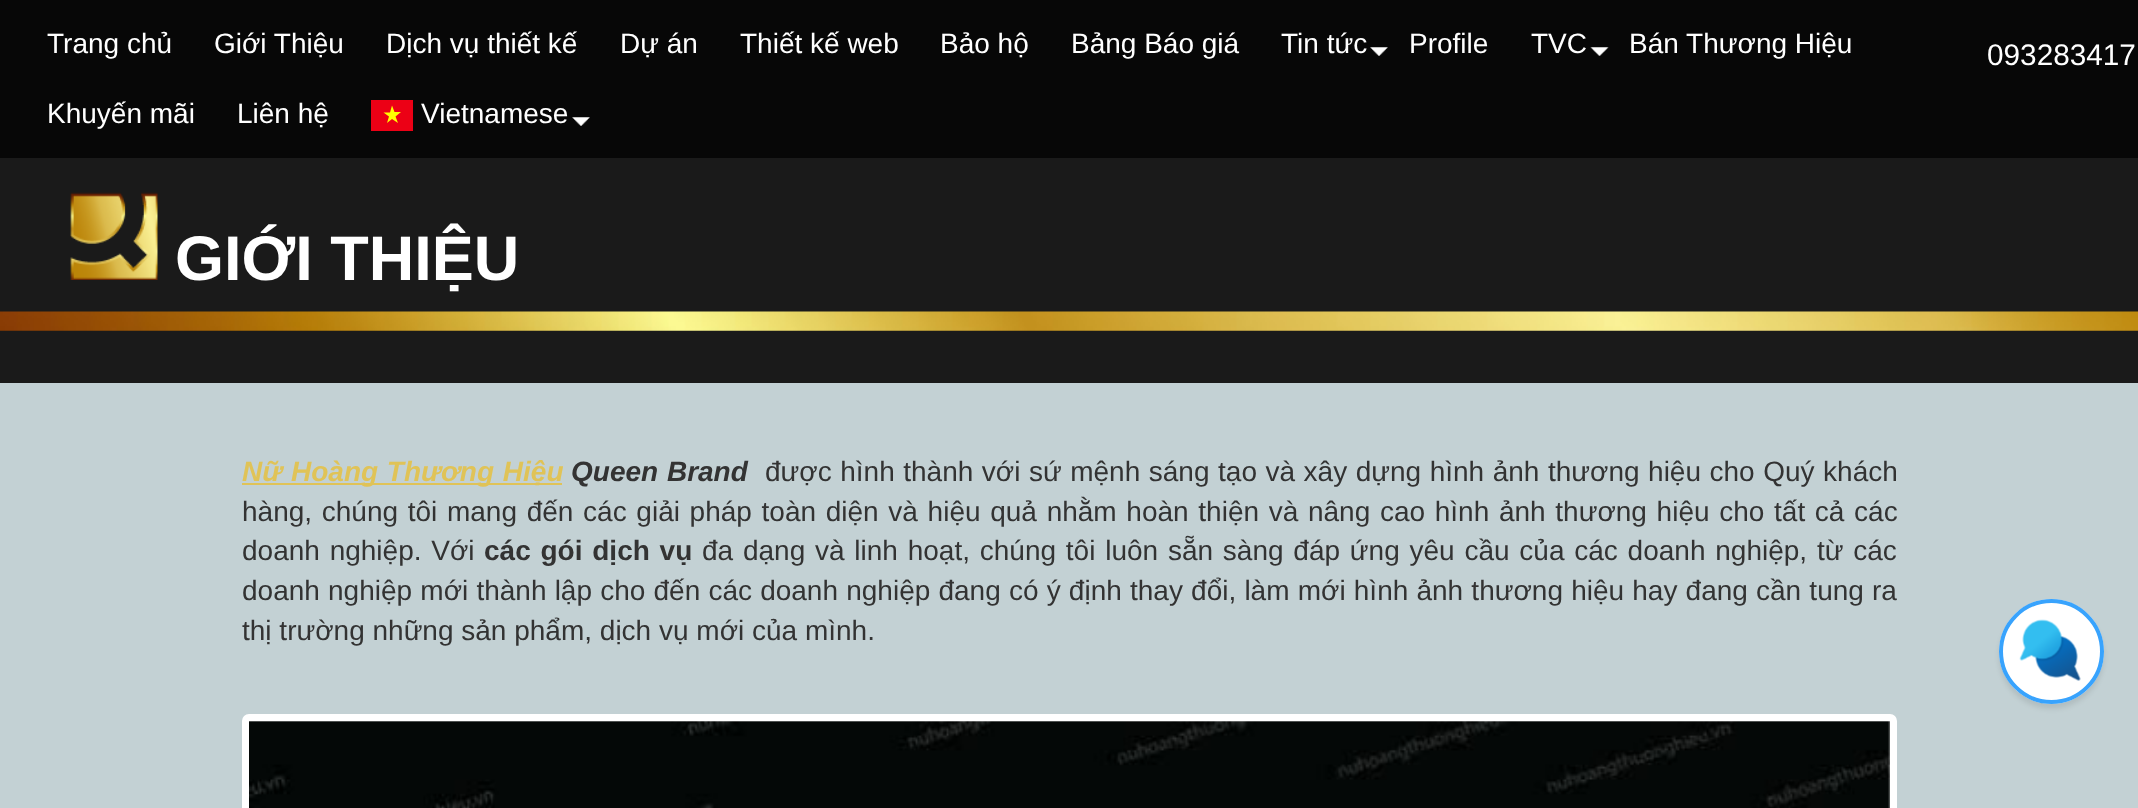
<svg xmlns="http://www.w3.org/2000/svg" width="2138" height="808">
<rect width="100%" height="100%" fill="#1a1a1a"/>
<rect width="2138" height="158" fill="#070707"/>
<text x="47" y="53" style="font-family:Liberation Sans;font-size:28px;fill:#fff">Trang chủ</text>
<text x="214" y="53" style="font-family:Liberation Sans;font-size:28px;fill:#fff">Giới Thiệu</text>
<text x="386" y="53" style="font-family:Liberation Sans;font-size:28px;fill:#fff">Dịch vụ thiết kế</text>
<text x="620" y="53" style="font-family:Liberation Sans;font-size:28px;fill:#fff">Dự án</text>
<text x="740" y="53" style="font-family:Liberation Sans;font-size:28px;fill:#fff">Thiết kế web</text>
<text x="940" y="53" style="font-family:Liberation Sans;font-size:28px;fill:#fff">Bảo hộ</text>
<text x="1071" y="53" style="font-family:Liberation Sans;font-size:28px;fill:#fff">Bảng Báo giá</text>
<text x="1281" y="53" style="font-family:Liberation Sans;font-size:28px;fill:#fff">Tin tức</text>
<image x="1370" y="47" width="18" height="9" href="media/1.png"/>
<text x="1409" y="53" style="font-family:Liberation Sans;font-size:28px;fill:#fff">Profile</text>
<text x="1531" y="53" style="font-family:Liberation Sans;font-size:28px;fill:#fff">TVC</text>
<image x="1590" y="47" width="19" height="9" href="media/2.png"/>
<text x="1629" y="53" style="font-family:Liberation Sans;font-size:28px;fill:#fff">Bán Thương Hiệu</text>
<text x="47" y="123" style="font-family:Liberation Sans;font-size:28px;fill:#fff">Khuyến mãi</text>
<text x="237" y="123" style="font-family:Liberation Sans;font-size:28px;fill:#fff">Liên hệ</text>
<rect x="371" y="100" width="42" height="31" fill="#ec0015"/>
<text x="421" y="123" style="font-family:Liberation Sans;font-size:28px;fill:#fff">Vietnamese</text>
<path d="M398 123l-6-4l-5 4l2-6.5l-5.5-4h6.5l2-7l2.5 6.5h6.5l-5.5 4.5z" fill="#ff0" fill-rule="evenodd"/>
<image x="572" y="117" width="18" height="9" href="media/1.png"/>
<text x="1987" y="65" style="font-family:Liberation Sans;font-size:29.75px;fill:#fff">093283417</text>
<image x="70" y="192" width="88" height="88" href="media/3.png"/>
<text x="175" y="280" style="font-family:Liberation Sans;font-size:63px;font-weight:bold;fill:#fff">GIỚI THIỆU</text>
<image x="0" y="311" width="2138" height="20" href="media/4.png"/>
<rect y="383" width="2138" height="425" fill="#c3d1d4"/>
<rect x="242" y="483" width="320" height="2" fill="#e0c357"/>
<text x="242" y="481" word-spacing="1" style="font-family:Liberation Sans;font-size:28px;font-weight:bold;font-style:italic;fill:#e0c357">Nữ Hoàng Thương Hiệu</text>
<text x="571" y="481" word-spacing="1" style="font-family:Liberation Sans;font-size:28px;font-weight:bold;font-style:italic;fill:#333">Queen Brand</text>
<text x="765" y="481" word-spacing="0.75" style="font-family:Liberation Sans;font-size:28px;fill:#333">được hình thành với sứ mệnh sáng tạo và xây dựng hình ảnh thương hiệu cho Quý khách</text>
<text x="242" y="521" word-spacing="1.9" style="font-family:Liberation Sans;font-size:28px;fill:#333">hàng, chúng tôi mang đến các giải pháp toàn diện và hiệu quả nhằm hoàn thiện và nâng cao hình ảnh thương hiệu cho tất cả các</text>
<text x="242" y="560" word-spacing="2" style="font-family:Liberation Sans;font-size:28px;fill:#333">doanh nghiệp. Với</text>
<text x="484" y="560" word-spacing="2" style="font-family:Liberation Sans;font-size:28px;font-weight:bold;fill:#333">các gói dịch vụ</text>
<text x="702" y="560" word-spacing="2" style="font-family:Liberation Sans;font-size:28px;fill:#333">đa dạng và linh hoạt, chúng tôi luôn sẵn sàng đáp ứng yêu cầu của các doanh nghiệp, từ các</text>
<text x="242" y="600" word-spacing="0.4" style="font-family:Liberation Sans;font-size:28px;fill:#333">doanh nghiệp mới thành lập cho đến các doanh nghiệp đang có ý định thay đổi, làm mới hình ảnh thương hiệu hay đang cần tung ra</text>
<text x="242" y="640" style="font-family:Liberation Sans;font-size:28px;fill:#333">thị trường những sản phẩm, dịch vụ mới của mình.</text>
<rect x="245.5" y="717.5" width="1648" height="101" rx="3.5" fill="#fff" stroke="#fff" stroke-width="7"/>
<image x="249" y="721" width="1641" height="87" href="media/5.png"/>
<rect x="1999" y="604" width="105" height="105" rx="52.5" fill="#00000017" filter="blur(2.5px)"/>
<circle cx="2051.5" cy="651.5" r="52.5" fill="#fff"/>
<image x="2019" y="619" width="62" height="62" href="media/6.png"/>
<circle cx="2051.5" cy="651.5" r="50.5" fill="none" stroke="#38a3fd" stroke-width="4"/>
</svg>
